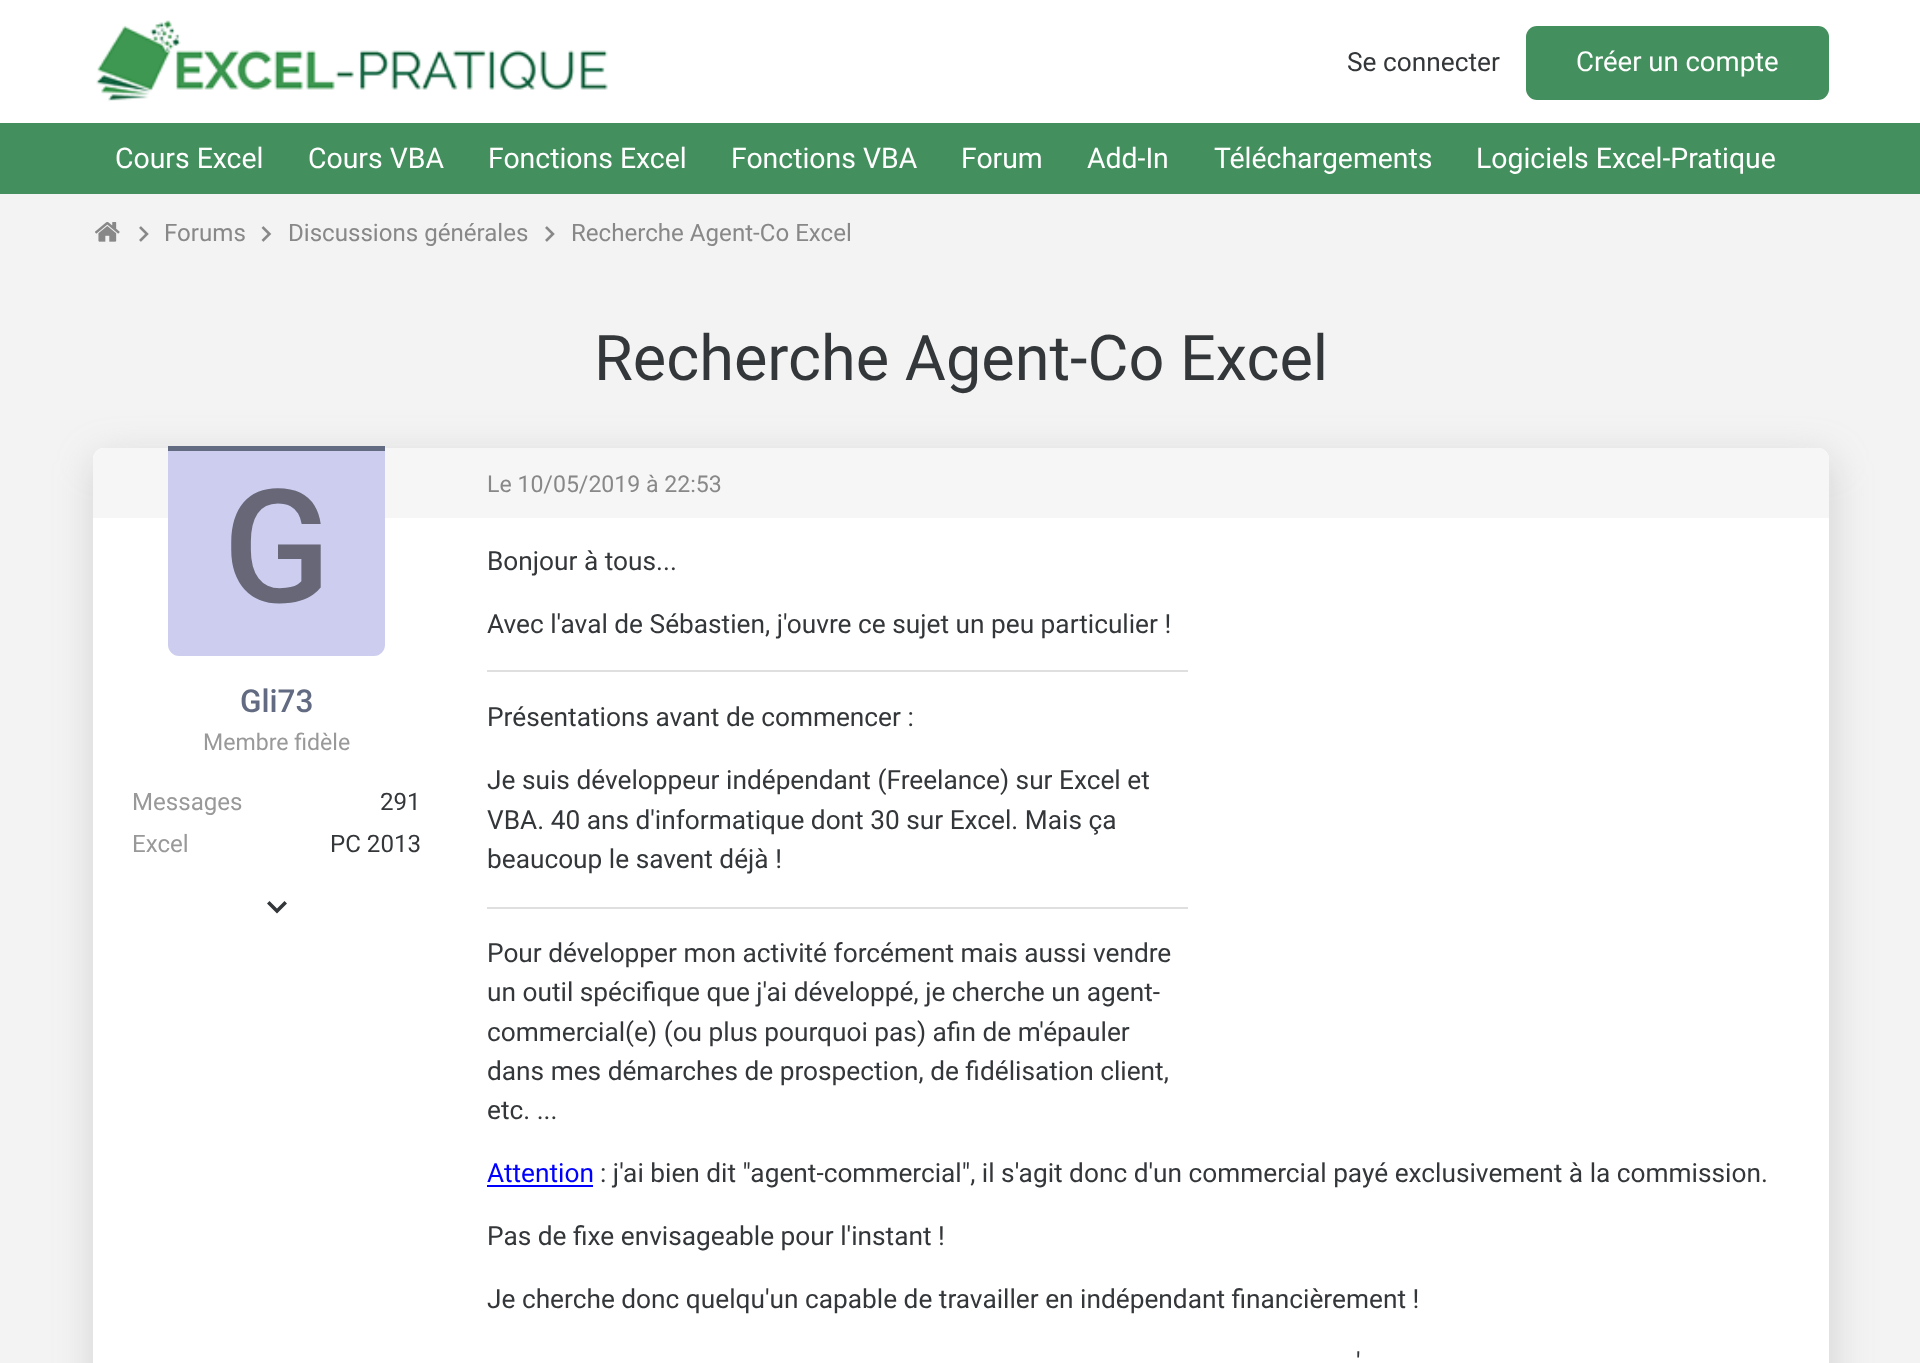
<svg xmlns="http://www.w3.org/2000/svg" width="1920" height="1363">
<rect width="100%" height="100%" fill="#f3f3f3"/>
<rect width="1920" height="123" fill="#fff"/>
<image x="96" y="20" width="512" height="82" href="media/1.png"/>
<text x="1347" y="71" style="font-family:Roboto;font-size:26.25px;fill:#34373a">Se connecter</text>
<rect x="1526" y="26" width="303" height="74" rx="11" fill="#438f5d"/>
<text x="1576" y="71" style="font-family:Roboto;font-size:27.5px;fill:#fff">Créer un compte</text>
<rect y="123" width="1920" height="71" fill="#438f5d"/>
<text x="115" y="168" style="font-family:Roboto;font-size:28.4px;fill:#fff">Cours Excel</text>
<text x="308" y="168" style="font-family:Roboto;font-size:28.4px;fill:#fff">Cours VBA</text>
<text x="488" y="168" style="font-family:Roboto;font-size:28.4px;fill:#fff">Fonctions Excel</text>
<text x="731" y="168" style="font-family:Roboto;font-size:28.4px;fill:#fff">Fonctions VBA</text>
<text x="961" y="168" style="font-family:Roboto;font-size:28.4px;fill:#fff">Forum</text>
<text x="1087" y="168" style="font-family:Roboto;font-size:28.4px;fill:#fff">Add-In</text>
<text x="1214" y="168" style="font-family:Roboto;font-size:28.4px;fill:#fff">Téléchargements</text>
<text x="1476" y="168" style="font-family:Roboto;font-size:28.4px;fill:#fff">Logiciels Excel-Pratique</text>
<image x="95" y="222" width="25" height="20" href="media/2.png"/>
<image x="139" y="226" width="10" height="16" href="media/3.png"/>
<text x="164" y="241" style="font-family:Roboto;font-size:24.1px;fill:#888">Forums</text>
<image x="261" y="226" width="11" height="16" href="media/4.png"/>
<text x="288" y="241" style="font-family:Roboto;font-size:24.1px;fill:#888">Discussions générales</text>
<image x="545" y="226" width="10" height="16" href="media/3.png"/>
<text x="571" y="241" style="font-family:Roboto;font-size:24.1px;fill:#888">Recherche Agent-Co Excel</text>
<text x="594" y="380" style="font-family:Roboto;font-size:63px;fill:#34373a">Recherche Agent-Co Excel</text>
<rect x="95" y="459" width="1736" height="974" rx="11" fill="#96969659" filter="blur(19.5px)"/>
<rect x="93" y="448" width="1736" height="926" rx="11" fill="#fff"/>
<path d="M104 448h356v70h-367v-59c0-6 5-11 11-11z" fill="#f6f6f6"/>
<path d="M460 448h1358c6 0 11 5 11 11v59h-1369z" fill="#f6f6f6"/>
<text x="487" y="492" style="font-family:Roboto;font-size:23.1px;fill:#888">Le 10/05/2019 à 22:53</text>
<path d="M168 448h217v197c0 6-5 11-11 11h-195c-6 0-11-5-11-11z" fill="#cdceef"/>
<rect x="168" y="446" width="217" height="5" fill="#626b81"/>
<text x="223" y="602" style="font-family:Roboto;font-size:158px;font-weight:500;fill:#676778">G</text>
<text x="240" y="712" style="font-family:Roboto;font-size:31.5px;font-weight:500;fill:#626b81">Gli73</text>
<text x="203" y="750" style="font-family:Roboto;font-size:23.1px;fill:#999">Membre fidèle</text>
<text x="132" y="810" style="font-family:Roboto;font-size:24.1px;fill:#999">Messages</text>
<text x="380" y="810" style="font-family:Roboto;font-size:24.1px;fill:#34373a">291</text>
<text x="132" y="852" style="font-family:Roboto;font-size:24.1px;fill:#999">Excel</text>
<text x="330" y="852" style="font-family:Roboto;font-size:24.1px;fill:#34373a">PC 2013</text>
<path d="M269.5 901l7.5 7.5l7.5-7.5l2.5 2.5l-10 10l-10-10z" fill="#34373a"/>
<text x="487" y="570" style="font-family:Roboto;font-size:26.25px;fill:#34373a">Bonjour à tous...</text>
<text x="487" y="633" style="font-family:Roboto;font-size:26.25px;fill:#34373a">Avec l'aval de Sébastien, j'ouvre ce sujet un peu particulier !</text>
<rect x="487" y="670" width="701" height="2" fill="#dfdfdf"/>
<text x="487" y="726" style="font-family:Roboto;font-size:26.25px;fill:#34373a">Présentations avant de commencer :</text>
<text x="487" y="789" style="font-family:Roboto;font-size:26.25px;fill:#34373a">Je suis développeur indépendant (Freelance) sur Excel et</text>
<text x="487" y="829" style="font-family:Roboto;font-size:26.25px;fill:#34373a">VBA. 40 ans d'informatique dont 30 sur Excel. Mais ça</text>
<text x="487" y="868" style="font-family:Roboto;font-size:26.25px;fill:#34373a">beaucoup le savent déjà !</text>
<rect x="487" y="907" width="701" height="2" fill="#dfdfdf"/>
<text x="487" y="962" style="font-family:Roboto;font-size:26.25px;fill:#34373a">Pour développer mon activité forcément mais aussi vendre</text>
<text x="487" y="1001" style="font-family:Roboto;font-size:26.25px;fill:#34373a">un outil spécifique que j'ai développé, je cherche un agent-</text>
<text x="487" y="1041" style="font-family:Roboto;font-size:26.25px;fill:#34373a">commercial(e) (ou plus pourquoi pas) afin de m'épauler</text>
<text x="487" y="1080" style="font-family:Roboto;font-size:26.25px;fill:#34373a">dans mes démarches de prospection, de fidélisation client,</text>
<text x="487" y="1119" style="font-family:Roboto;font-size:26.25px;fill:#34373a">etc. ...</text>
<text x="487" y="1182" style="font-family:Roboto;font-size:26.25px;fill:#00f">Attention</text>
<rect x="487" y="1185" width="106" height="2" fill="#00f"/>
<text x="600" y="1182" style="font-family:Roboto;font-size:26.25px;fill:#34373a">: j'ai bien dit "agent-commercial", il s'agit donc d'un commercial payé exclusivement à la commission.</text>
<text x="487" y="1245" style="font-family:Roboto;font-size:26.25px;fill:#34373a">Pas de fixe envisageable pour l'instant !</text>
<text x="487" y="1308" style="font-family:Roboto;font-size:26.25px;fill:#34373a">Je cherche donc quelqu'un capable de travailler en indépendant financièrement !</text>
<text x="1356" y="1371" style="font-family:Roboto;font-size:26.25px;fill:#34373a">'</text>
</svg>
